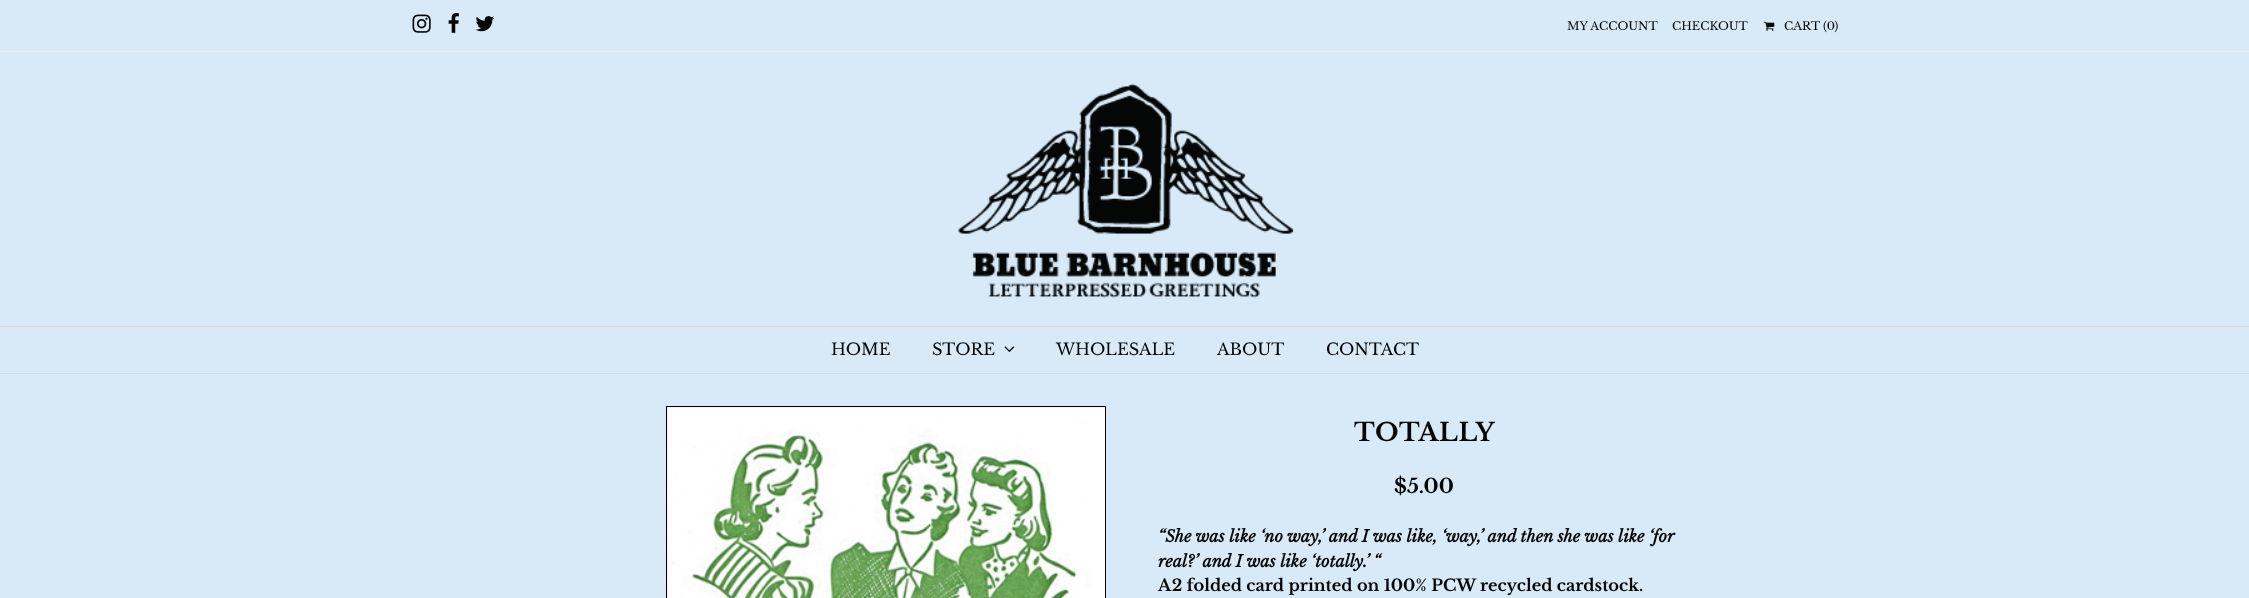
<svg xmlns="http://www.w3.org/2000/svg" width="2249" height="598">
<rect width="100%" height="100%" fill="#d8eaf8"/>
<rect y="51" width="2249" height="1" fill="#eee"/>
<image x="412" y="14" width="19" height="19" href="media/1.png"/>
<image x="448" y="13" width="11" height="20" href="media/2.png"/>
<image x="475" y="16" width="19" height="16" href="media/3.png"/>
<text x="1567" y="30" style="font-family:Libre Baskerville;font-size:11.5px;fill:#060606">MY ACCOUNT</text>
<text x="1672" y="30" style="font-family:Libre Baskerville;font-size:11.5px;fill:#060606">CHECKOUT</text>
<image x="1763" y="21" width="12" height="10" href="media/4.png"/>
<text x="1784" y="30" style="font-family:Libre Baskerville;font-size:11.5px;fill:#060606">CART (0)</text>
<image x="958" y="83" width="336" height="215" href="media/5.png"/>
<rect y="326" width="2249" height="1" fill="#d7d7d7"/>
<rect y="373" width="2249" height="1" fill="#d7d7d7"/>
<text x="831" y="355" style="font-family:Libre Baskerville;font-size:16.25px;fill:#060606">HOME</text>
<text x="932" y="355" style="font-family:Libre Baskerville;font-size:16.25px;fill:#060606">STORE</text>
<image x="1004" y="346" width="11" height="6" href="media/6.png"/>
<text x="1056" y="355" style="font-family:Libre Baskerville;font-size:16.25px;fill:#060606">WHOLESALE</text>
<text x="1217" y="355" style="font-family:Libre Baskerville;font-size:16.25px;fill:#060606">ABOUT</text>
<text x="1326" y="355" style="font-family:Libre Baskerville;font-size:16.25px;fill:#060606">CONTACT</text>
<rect x="666.5" y="406.5" width="439" height="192" fill="none" stroke="#000"/>
<image x="667" y="407" width="438" height="191" href="media/7.png"/>
<text x="1354" y="441" style="font-family:Libre Baskerville;font-size:25px;font-weight:bold;letter-spacing:0.5px;fill:#060606">TOTALLY</text>
<text x="1394" y="493" style="font-family:Libre Baskerville;font-size:20px;font-weight:bold;fill:#060606">$5.00</text>
<text x="1158" y="542" style="font-family:Libre Baskerville;font-size:16.25px;font-weight:bold;font-style:italic;fill:#060606">“She was like ‘no way,’ and I was like, ‘way,’ and then she was like ‘for</text>
<text x="1158" y="567" style="font-family:Libre Baskerville;font-size:16.25px;font-weight:bold;font-style:italic;fill:#060606">real?’ and I was like ‘totally.’ “</text>
<text x="1158" y="591" style="font-family:Libre Baskerville;font-size:16.25px;font-weight:bold;fill:#060606">A2 folded card printed on 100% PCW recycled cardstock.</text>
</svg>
